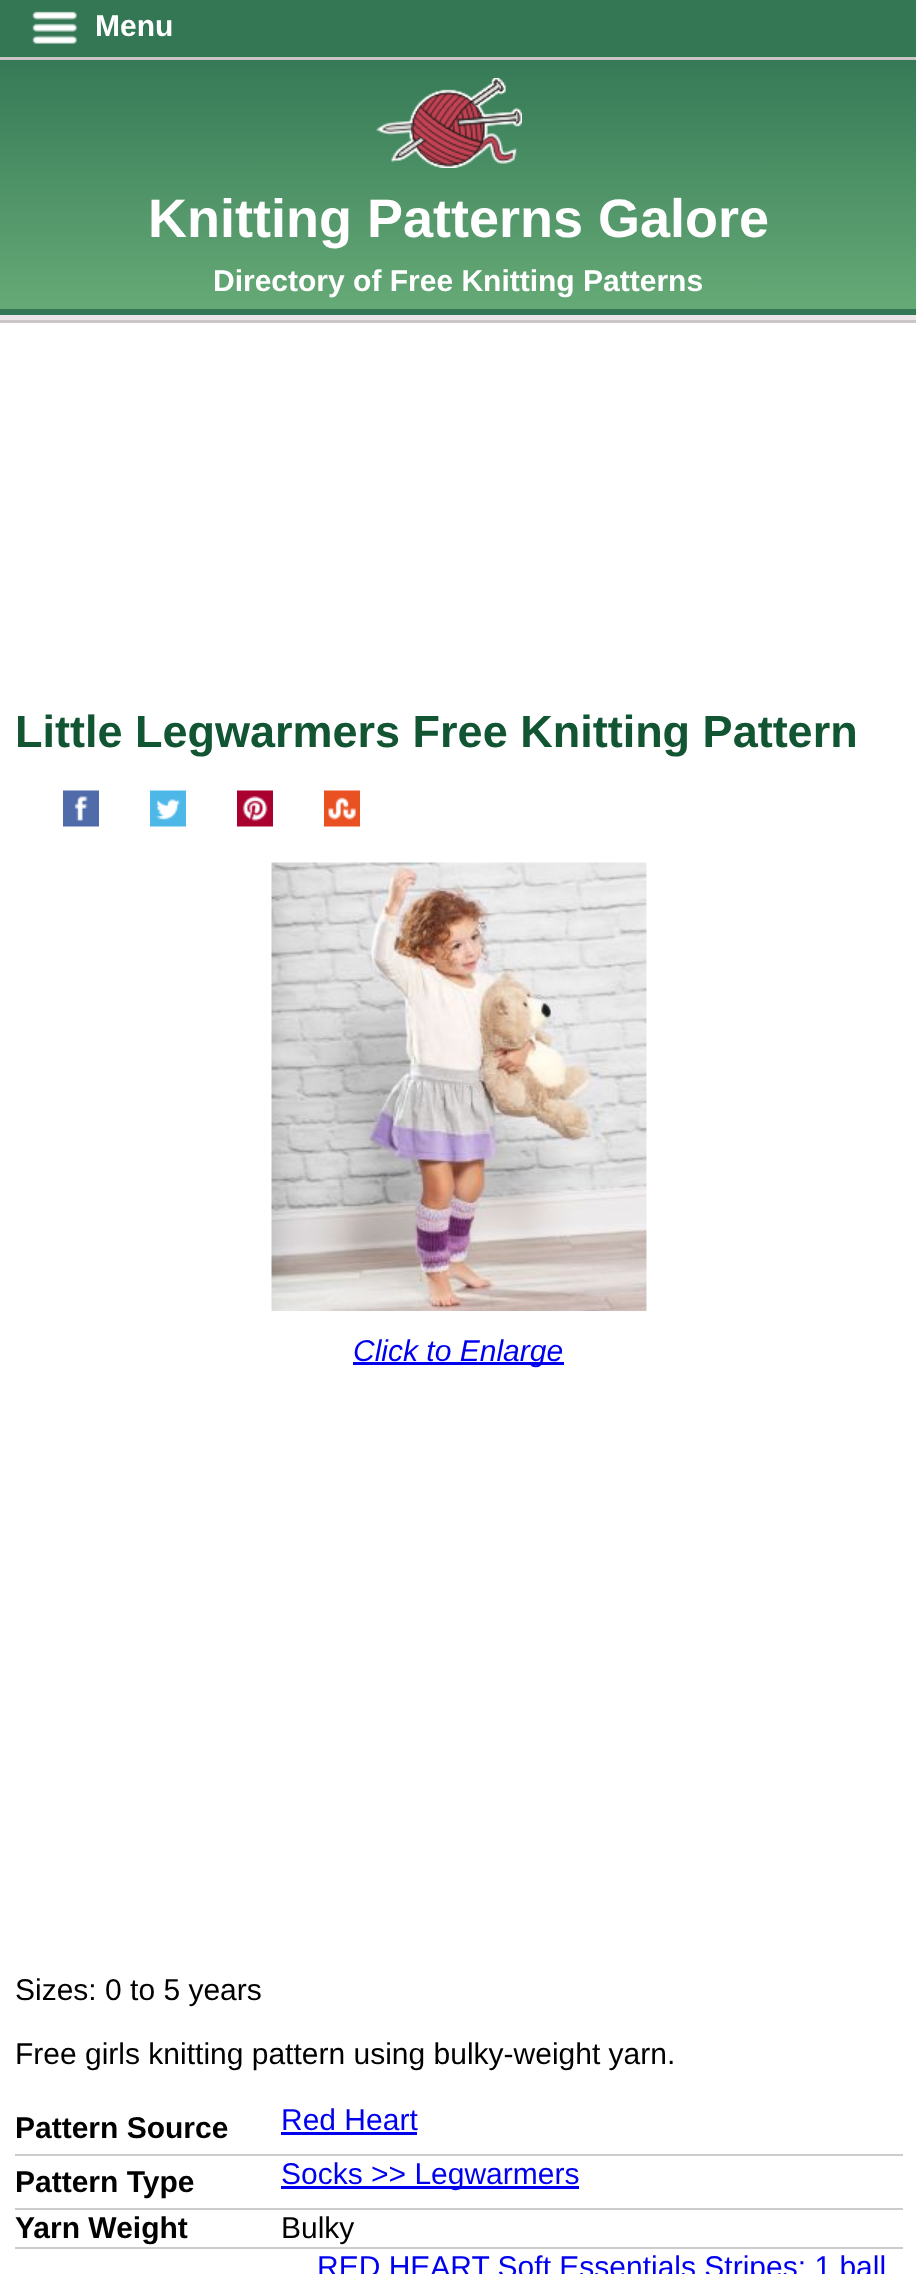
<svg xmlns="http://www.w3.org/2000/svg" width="916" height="2274">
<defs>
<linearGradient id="g1" gradientUnits="userSpaceOnUse" x1="458" y1="48" x2="458" y2="309"><stop offset="0" stop-color="#375"/><stop offset="1" stop-color="#6a7"/></linearGradient>
</defs>
<rect width="100%" height="100%" fill="#fff"/>
<rect width="916" height="57" fill="#375"/>
<rect y="57" width="916" height="3" fill="#ccc5c8"/>
<image x="32" y="11" width="45" height="33" href="media/1.png"/>
<text x="95" y="36" style="font-family:Liberation Sans;font-size:30px;font-weight:bold;fill:#fff">Menu</text>
<rect y="60" width="916" height="249" fill="url(#g1)"/>
<image x="376" y="78" width="146" height="90" href="media/2.png"/>
<text x="148" y="237" style="font-family:Liberation Sans;font-size:54px;font-weight:bold;fill:#fff">Knitting Patterns Galore</text>
<text x="213" y="291" style="font-family:Liberation Sans;font-size:30px;font-weight:bold;fill:#fff">Directory of Free Knitting Patterns</text>
<rect y="315" width="916" height="5" fill="#ece5e8"/>
<rect y="309" width="916" height="6" fill="#375"/>
<rect y="320" width="916" height="3" fill="#ccc5c8"/>
<text x="15" y="747" style="font-family:Liberation Sans;font-size:45px;font-weight:bold;fill:#153">Little Legwarmers Free Knitting Pattern</text>
<image x="63" y="790" width="36" height="37" href="media/3.png"/>
<image x="150" y="790" width="36" height="37" href="media/4.png"/>
<image x="237" y="790" width="36" height="37" href="media/5.png"/>
<image x="324" y="790" width="36" height="37" href="media/6.png"/>
<image x="271" y="862" width="376" height="449" href="media/7.png"/>
<rect x="353" y="1362" width="211" height="3" fill="#00e"/>
<text x="353" y="1361" style="font-family:Liberation Sans;font-size:30px;font-style:italic;fill:#00e">Click to Enlarge</text>
<text x="15" y="2000" style="font-family:Liberation Sans;font-size:30px;fill:#000">Sizes: 0 to 5 years</text>
<text x="15" y="2064" style="font-family:Liberation Sans;font-size:30px;fill:#000">Free girls knitting pattern using bulky-weight yarn.</text>
<text x="15" y="2138" style="font-family:Liberation Sans;font-size:30px;font-weight:bold;fill:#000">Pattern Source</text>
<rect x="15" y="2154" width="888" height="2" fill="#ccc"/>
<text x="281" y="2130" style="font-family:Liberation Sans;font-size:30px;fill:#00e">Red Heart</text>
<rect x="281" y="2132" width="136" height="3" fill="#00e"/>
<text x="15" y="2192" style="font-family:Liberation Sans;font-size:30px;font-weight:bold;fill:#000">Pattern Type</text>
<rect x="15" y="2208" width="888" height="2" fill="#ccc"/>
<rect x="281" y="2186" width="298" height="3" fill="#00e"/>
<text x="281" y="2184" style="font-family:Liberation Sans;font-size:30px;fill:#00e">Socks &gt;&gt; Legwarmers</text>
<text x="15" y="2238" style="font-family:Liberation Sans;font-size:30px;font-weight:bold;fill:#000">Yarn Weight</text>
<rect x="15" y="2247" width="888" height="2" fill="#ccc"/>
<text x="281" y="2238" style="font-family:Liberation Sans;font-size:30px;fill:#000">Bulky</text>
<text x="317" y="2277" style="font-family:Liberation Sans;font-size:30px;fill:#00e">RED HEART Soft Essentials Stripes: 1 ball</text>
</svg>
